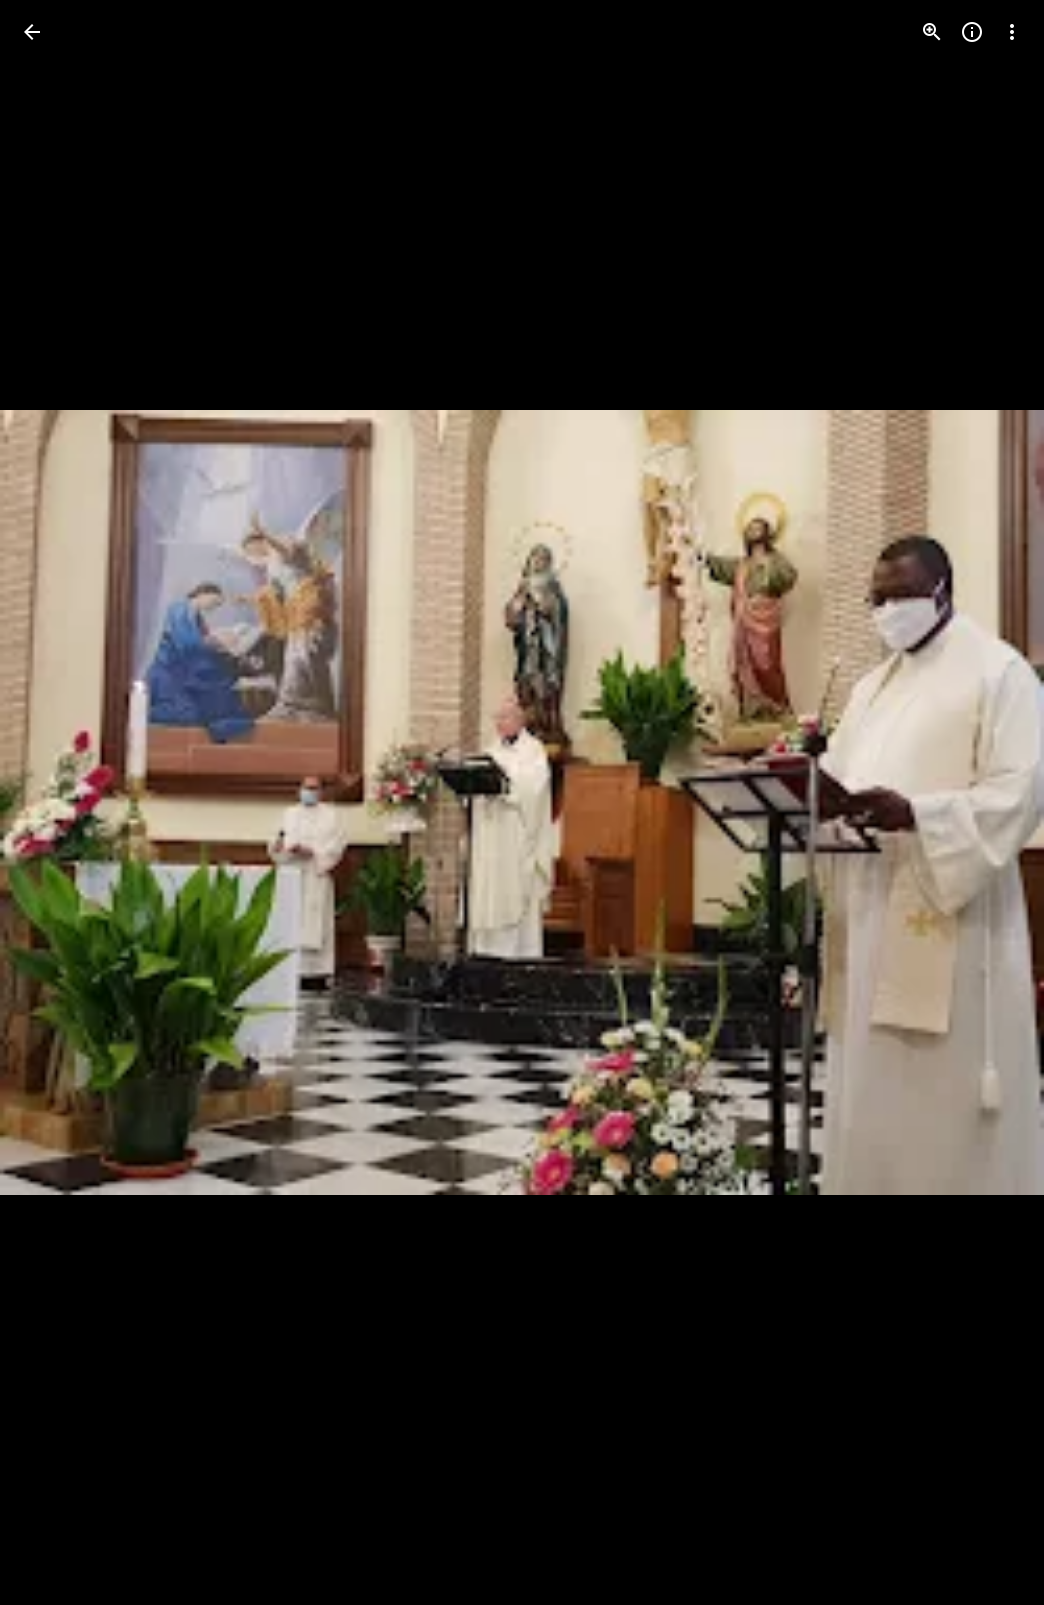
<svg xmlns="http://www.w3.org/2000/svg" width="1044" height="1605">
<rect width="100%" height="100%" fill="#000"/>
<image x="24" y="24" width="16" height="16" href="media/1.png"/>
<image x="923" y="23" width="18" height="18" href="media/2.png"/>
<image x="962" y="22" width="20" height="20" href="media/3.png"/>
<image x="1010" y="24" width="4" height="16" href="media/4.png"/>
<image x="0" y="410" width="1044" height="785" href="media/5.png"/>
</svg>
